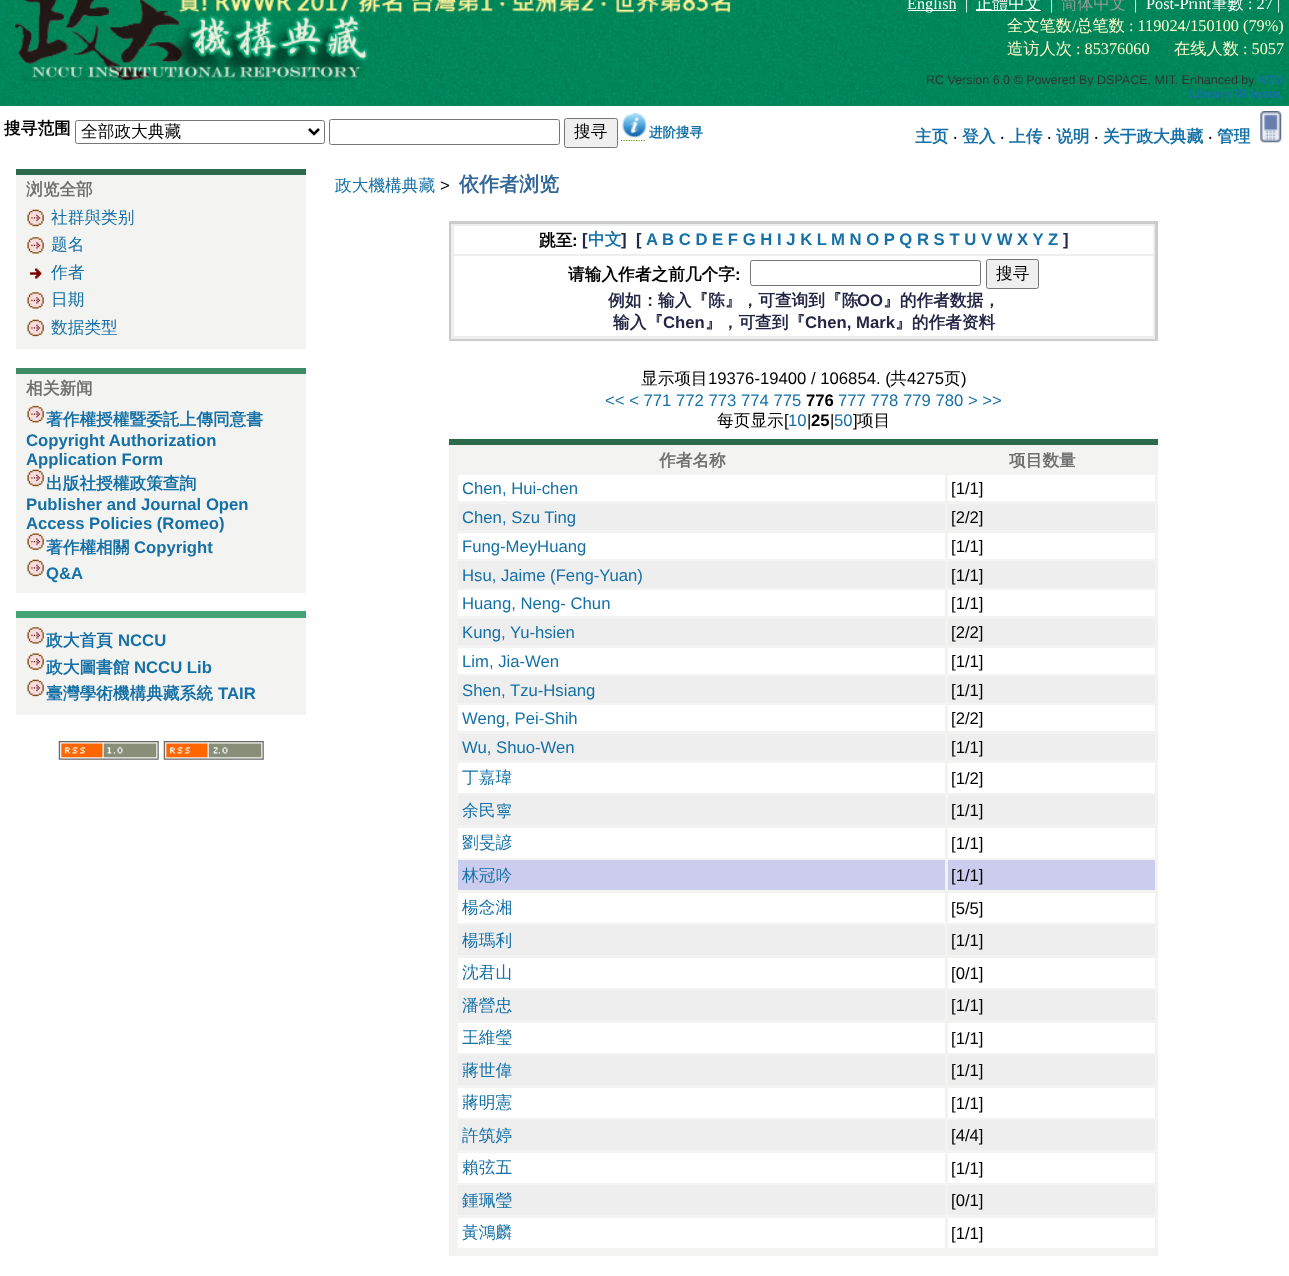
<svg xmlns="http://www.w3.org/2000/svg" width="1289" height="1276">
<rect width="100%" height="100%" fill="#fff"/>
<image x="0" y="0" width="1289" height="106" href="media/1.png"/>
<image x="6" y="0" width="887" height="81" href="media/2.png"/>
<rect x="908" y="10" width="48" height="1" fill="#fff"/>
<text x="907" y="9" style="font-family:Liberation Serif;font-size:16.25px;fill:#fff">English</text>
<text x="965" y="9" style="font-family:Liberation Serif;font-size:16.25px;fill:#fff">|</text>
<rect x="976" y="10" width="65" height="1" fill="#fff"/>
<text x="976" y="9" style="font-family:WenQuanYi Zen Hei;font-size:16.25px;font-weight:500;fill:#fff">正體中文</text>
<text x="1050" y="9" style="font-family:Liberation Serif;font-size:16.25px;fill:#fff">|</text>
<text x="1061" y="9" style="font-family:WenQuanYi Zen Hei;font-size:16.25px;font-weight:500;fill:#999">简体中文</text>
<text x="1134" y="9" style="font-family:Liberation Serif;font-size:16.25px;fill:#fff">|</text>
<text x="1146" y="9" style="font-family:Liberation Serif;font-size:16.25px;fill:#fff">Post-Print</text>
<text x="1211" y="9" style="font-family:WenQuanYi Zen Hei;font-size:16.25px;font-weight:500;fill:#fff">筆數</text>
<text x="1248" y="9" style="font-family:Liberation Serif;font-size:16.25px;fill:#fff">: 27 |</text>
<text x="1007" y="31" style="font-family:WenQuanYi Zen Hei;font-size:16.25px;font-weight:500;fill:#ffc">全文笔数</text>
<text x="1072" y="31" style="font-family:Liberation Serif;font-size:16.25px;fill:#ffc">/</text>
<text x="1076" y="31" style="font-family:WenQuanYi Zen Hei;font-size:16.25px;font-weight:500;fill:#ffc">总笔数</text>
<text x="1129" y="31" style="font-family:Liberation Serif;font-size:16.25px;fill:#ffc">: 119024/150100 (79%)</text>
<text x="1007" y="54" style="font-family:WenQuanYi Zen Hei;font-size:16.25px;font-weight:500;fill:#ffc">造访人次</text>
<text x="1076" y="54" style="font-family:Liberation Serif;font-size:16.25px;fill:#ffc">: 85376060</text>
<text x="1174" y="54" style="font-family:WenQuanYi Zen Hei;font-size:16.25px;font-weight:500;fill:#ffc">在线人数</text>
<text x="1243" y="54" style="font-family:Liberation Serif;font-size:16.25px;fill:#ffc">: 5057</text>
<text x="926" y="84" style="font-family:Liberation Sans;font-size:12.5px;fill:#333">RC Version 6.0 © Powered By DSPACE, MIT. Enhanced by</text>
<text x="1258" y="84" style="font-family:Liberation Sans;font-size:12.5px;font-weight:bold;fill:#1570a6">NTU</text>
<text x="1189" y="98" style="font-family:Liberation Sans;font-size:12.5px;font-weight:bold;fill:#1570a6">Library IR team.</text>
<text x="4" y="134" style="font-family:WenQuanYi Zen Hei;font-size:16.7px;font-weight:bold;fill:#000">搜寻范围</text>
<rect x="75.5" y="120.5" width="249" height="23" rx="2" fill="none" stroke="#767676"/>
<path d="M309 129l5 5l5-5" fill="none" stroke="#000" stroke-width="2.5"/>
<text x="81" y="137" style="font-family:WenQuanYi Zen Hei;font-size:16.7px;font-weight:500;fill:#000">全部政大典藏</text>
<rect x="329.5" y="119.5" width="230" height="25" rx="2" fill="none" stroke="#767676"/>
<rect x="564.5" y="118.5" width="53" height="29" rx="2" fill="#efefef" stroke="#767676"/>
<text x="574" y="137" style="font-family:WenQuanYi Zen Hei;font-size:16.7px;font-weight:500;fill:#000">搜寻</text>
<image x="622" y="112" width="25" height="26" href="media/3.png"/>
<text x="649" y="137" style="font-family:WenQuanYi Zen Hei;font-size:13.5px;font-weight:bold;fill:#1570a6">进阶搜寻</text>
<path d="M621 140.5h25" fill="none" stroke="#690" stroke-width="1.2" stroke-dasharray="1.25 1.25"/>
<text x="915" y="142" style="font-family:WenQuanYi Zen Hei;font-size:16.7px;font-weight:bold;fill:#1570a6">主页</text>
<text x="953" y="142" style="font-family:Noto Sans;font-size:16.7px;fill:#000">‧</text>
<text x="962" y="142" style="font-family:WenQuanYi Zen Hei;font-size:16.7px;font-weight:bold;fill:#1570a6">登入</text>
<text x="1000" y="142" style="font-family:Noto Sans;font-size:16.7px;fill:#000">‧</text>
<text x="1009" y="142" style="font-family:WenQuanYi Zen Hei;font-size:16.7px;font-weight:bold;fill:#1570a6">上传</text>
<text x="1047" y="142" style="font-family:Noto Sans;font-size:16.7px;fill:#000">‧</text>
<text x="1056" y="142" style="font-family:WenQuanYi Zen Hei;font-size:16.7px;font-weight:bold;fill:#1570a6">说明</text>
<text x="1094" y="142" style="font-family:Noto Sans;font-size:16.7px;fill:#000">‧</text>
<text x="1103" y="142" style="font-family:WenQuanYi Zen Hei;font-size:16.7px;font-weight:bold;fill:#1570a6">关于政大典藏</text>
<text x="1208" y="142" style="font-family:Noto Sans;font-size:16.7px;fill:#000">‧</text>
<text x="1217" y="142" style="font-family:WenQuanYi Zen Hei;font-size:16.7px;font-weight:bold;fill:#1570a6">管理</text>
<image x="1260" y="111" width="22" height="32" href="media/4.png"/>
<rect x="16" y="175" width="290" height="174" fill="#f3f3f1"/>
<rect x="16" y="169" width="290" height="6" fill="#2d694b"/>
<text x="26" y="195" style="font-family:WenQuanYi Zen Hei;font-size:16.7px;font-weight:bold;fill:#707070">浏览全部</text>
<image x="27" y="209" width="17" height="18" href="media/5.png"/>
<text x="51" y="223" style="font-family:WenQuanYi Zen Hei;font-size:16.7px;font-weight:500;fill:#1570a6">社群與类别</text>
<image x="27" y="237" width="17" height="17" href="media/6.png"/>
<text x="51" y="250" style="font-family:WenQuanYi Zen Hei;font-size:16.7px;font-weight:500;fill:#1570a6">题名</text>
<image x="29" y="268" width="13" height="11" href="media/7.png"/>
<text x="51" y="278" style="font-family:WenQuanYi Zen Hei;font-size:16.7px;font-weight:500;fill:#1570a6">作者</text>
<image x="27" y="292" width="17" height="17" href="media/6.png"/>
<text x="51" y="305" style="font-family:WenQuanYi Zen Hei;font-size:16.7px;font-weight:500;fill:#1570a6">日期</text>
<image x="27" y="319" width="17" height="18" href="media/5.png"/>
<text x="51" y="333" style="font-family:WenQuanYi Zen Hei;font-size:16.7px;font-weight:500;fill:#1570a6">数据类型</text>
<rect x="16" y="374" width="290" height="219" fill="#f3f3f1"/>
<rect x="16" y="368" width="290" height="6" fill="#3d8c65"/>
<text x="26" y="394" style="font-family:WenQuanYi Zen Hei;font-size:16.7px;font-weight:bold;fill:#707070">相关新闻</text>
<image x="27" y="405" width="17" height="18" href="media/8.png"/>
<text x="46" y="425" style="font-family:WenQuanYi Zen Hei;font-size:16.7px;font-weight:bold;fill:#1570a6">著作權授權暨委託上傳同意書</text>
<text x="26" y="446" style="font-family:Liberation Sans;font-size:16.7px;font-weight:bold;fill:#1570a6">Copyright Authorization</text>
<text x="26" y="465" style="font-family:Liberation Sans;font-size:16.7px;font-weight:bold;fill:#1570a6">Application Form</text>
<image x="27" y="469" width="17" height="18" href="media/5.png"/>
<text x="46" y="489" style="font-family:WenQuanYi Zen Hei;font-size:16.7px;font-weight:bold;fill:#1570a6">出版社授權政策查詢</text>
<text x="26" y="510" style="font-family:Liberation Sans;font-size:16.7px;font-weight:bold;fill:#1570a6">Publisher and Journal Open</text>
<text x="26" y="529" style="font-family:Liberation Sans;font-size:16.7px;font-weight:bold;fill:#1570a6">Access Policies (Romeo)</text>
<image x="27" y="533" width="17" height="17" href="media/9.png"/>
<text x="46" y="553" style="font-family:WenQuanYi Zen Hei;font-size:16.7px;font-weight:bold;fill:#1570a6">著作權相關</text>
<text x="134" y="553" style="font-family:Liberation Sans;font-size:16.7px;font-weight:bold;fill:#1570a6">Copyright</text>
<image x="27" y="559" width="17" height="18" href="media/5.png"/>
<text x="46" y="579" style="font-family:Liberation Sans;font-size:16.7px;font-weight:bold;fill:#1570a6">Q&amp;A</text>
<rect x="16" y="618" width="290" height="97" fill="#f3f3f1"/>
<rect x="16" y="611" width="290" height="7" fill="#45a375"/>
<image x="27" y="627" width="17" height="17" href="media/6.png"/>
<text x="46" y="646" style="font-family:WenQuanYi Zen Hei;font-size:16.7px;font-weight:bold;fill:#1570a6">政大首頁</text>
<text x="118" y="646" style="font-family:Liberation Sans;font-size:16.7px;font-weight:bold;fill:#1570a6">NCCU</text>
<image x="27" y="653" width="17" height="17" href="media/9.png"/>
<text x="46" y="673" style="font-family:WenQuanYi Zen Hei;font-size:16.7px;font-weight:bold;fill:#1570a6">政大圖書館</text>
<text x="134" y="673" style="font-family:Liberation Sans;font-size:16.7px;font-weight:bold;fill:#1570a6">NCCU Lib</text>
<image x="27" y="679" width="17" height="18" href="media/5.png"/>
<text x="46" y="699" style="font-family:WenQuanYi Zen Hei;font-size:16.7px;font-weight:bold;fill:#1570a6">臺灣學術機構典藏系統</text>
<text x="218" y="699" style="font-family:Liberation Sans;font-size:16.7px;font-weight:bold;fill:#1570a6">TAIR</text>
<image x="58" y="741" width="101" height="19" href="media/10.png"/>
<image x="163" y="741" width="101" height="19" href="media/11.png"/>
<text x="335" y="191" style="font-family:WenQuanYi Zen Hei;font-size:16.7px;font-weight:500;fill:#1570a6">政大機構典藏</text>
<text x="440" y="191" style="font-family:Liberation Sans;font-size:16.7px;fill:#000">&gt;</text>
<text x="459" y="191" style="font-family:WenQuanYi Zen Hei;font-size:20px;font-weight:bold;fill:#369">依作者浏览</text>
<rect x="449" y="221" width="709" height="120" fill="#ccc"/>
<rect x="451" y="224" width="704" height="115" fill="#eee"/>
<rect x="454" y="226" width="699" height="28" fill="#fff"/>
<text x="539" y="246" style="font-family:WenQuanYi Zen Hei;font-size:16.7px;font-weight:bold;fill:#000">跳至</text>
<text x="572" y="246" style="font-family:Liberation Sans;font-size:16.7px;font-weight:bold;fill:#000">:</text>
<text x="582" y="245" style="font-family:Liberation Sans;font-size:16.7px;font-weight:bold;fill:#252645">[</text>
<text x="588" y="245" style="font-family:WenQuanYi Zen Hei;font-size:16.7px;font-weight:bold;fill:#1570a6">中文</text>
<text x="621" y="245" style="font-family:Liberation Sans;font-size:16.7px;font-weight:bold;fill:#252645">]</text>
<text x="636" y="245" style="font-family:Liberation Sans;font-size:16.7px;font-weight:bold;fill:#252645">[</text>
<text x="646" y="245" style="font-family:Liberation Sans;font-size:16.7px;font-weight:bold;fill:#1570a6">A</text>
<text x="662" y="245" style="font-family:Liberation Sans;font-size:16.7px;font-weight:bold;fill:#1570a6">B C D E F G H I J K L</text>
<text x="831" y="245" style="font-family:Liberation Sans;font-size:16.7px;font-weight:bold;fill:#1570a6">M N O P Q R S T U V W X Y Z</text>
<text x="1063" y="245" style="font-family:Liberation Sans;font-size:16.7px;font-weight:bold;fill:#252645">]</text>
<rect x="454" y="256" width="699" height="80" fill="#fff"/>
<text x="568" y="280" style="font-family:WenQuanYi Zen Hei;font-size:16.7px;font-weight:bold;fill:#000">请输入作者之前几个字</text>
<text x="735" y="280" style="font-family:Liberation Sans;font-size:16.7px;font-weight:bold;fill:#000">:</text>
<rect x="750.5" y="260.5" width="230" height="25" rx="2" fill="none" stroke="#767676"/>
<rect x="986.5" y="259.5" width="52" height="29" rx="2" fill="#efefef" stroke="#767676"/>
<text x="996" y="279" style="font-family:WenQuanYi Zen Hei;font-size:16.7px;font-weight:500;fill:#000">搜寻</text>
<text x="608" y="306" style="font-family:WenQuanYi Zen Hei;font-size:16.7px;font-weight:bold;fill:#252645">例如：输入『陈』，可查询到『陈</text>
<text x="857" y="306" style="font-family:Liberation Sans;font-size:16.7px;font-weight:bold;fill:#252645">OO</text>
<text x="883" y="306" style="font-family:WenQuanYi Zen Hei;font-size:16.7px;font-weight:bold;fill:#252645">』的作者数据，</text>
<text x="613" y="328" style="font-family:WenQuanYi Zen Hei;font-size:16.7px;font-weight:bold;fill:#252645">输入『</text>
<text x="663" y="328" style="font-family:Liberation Sans;font-size:16.7px;font-weight:bold;fill:#252645">Chen</text>
<text x="705" y="328" style="font-family:WenQuanYi Zen Hei;font-size:16.7px;font-weight:bold;fill:#252645">』，可查到『</text>
<text x="805" y="328" style="font-family:Liberation Sans;font-size:16.7px;font-weight:bold;fill:#252645">Chen, Mark</text>
<text x="895" y="328" style="font-family:WenQuanYi Zen Hei;font-size:16.7px;font-weight:bold;fill:#252645">』的作者资料</text>
<text x="641" y="384" style="font-family:WenQuanYi Zen Hei;font-size:16.7px;font-weight:500;fill:#000">显示项目</text>
<text x="708" y="384" style="font-family:Liberation Sans;font-size:16.7px;fill:#000">19376-19400 / 106854. (</text>
<text x="890" y="384" style="font-family:WenQuanYi Zen Hei;font-size:16.7px;font-weight:500;fill:#000">共</text>
<text x="907" y="384" style="font-family:Liberation Sans;font-size:16.7px;fill:#000">4275</text>
<text x="944" y="384" style="font-family:WenQuanYi Zen Hei;font-size:16.7px;font-weight:500;fill:#000">页</text>
<text x="961" y="384" style="font-family:Liberation Sans;font-size:16.7px;fill:#000">)</text>
<text x="605" y="406" style="font-family:Liberation Sans;font-size:16.7px;fill:#1570a6">&lt;&lt; &lt; 771 772 773 774 775</text>
<text x="806" y="406" style="font-family:Liberation Sans;font-size:16.7px;font-weight:bold;fill:#000">776</text>
<text x="838" y="406" style="font-family:Liberation Sans;font-size:16.7px;fill:#1570a6">777 778 779 780 &gt; &gt;&gt;</text>
<text x="717" y="426" style="font-family:WenQuanYi Zen Hei;font-size:16.7px;font-weight:500;fill:#000">每页显示</text>
<text x="784" y="426" style="font-family:Liberation Sans;font-size:16.7px;fill:#000">[</text>
<text x="788" y="426" style="font-family:Liberation Sans;font-size:16.7px;fill:#1570a6">10</text>
<text x="807" y="426" style="font-family:Liberation Sans;font-size:16.7px;fill:#000">|</text>
<text x="811" y="426" style="font-family:Liberation Sans;font-size:16.7px;font-weight:bold;fill:#000">25</text>
<text x="830" y="426" style="font-family:Liberation Sans;font-size:16.7px;fill:#000">|</text>
<text x="834" y="426" style="font-family:Liberation Sans;font-size:16.7px;fill:#1570a6">50</text>
<text x="853" y="426" style="font-family:Liberation Sans;font-size:16.7px;fill:#000">]</text>
<text x="857" y="426" style="font-family:WenQuanYi Zen Hei;font-size:16.7px;font-weight:500;fill:#000">项目</text>
<rect x="449" y="445" width="709" height="811" fill="#f3f3f1"/>
<rect x="449" y="439" width="709" height="6" fill="#2d694b"/>
<text x="659" y="466" style="font-family:WenQuanYi Zen Hei;font-size:16.7px;font-weight:bold;fill:#707070">作者名称</text>
<text x="1009" y="466" style="font-family:WenQuanYi Zen Hei;font-size:16.7px;font-weight:bold;fill:#707070">项目数量</text>
<rect x="458" y="475" width="487" height="26" fill="#fff"/>
<text x="462" y="494" style="font-family:Liberation Sans;font-size:16.7px;fill:#1570a6">Chen, Hui-chen</text>
<rect x="948" y="475" width="207" height="26" fill="#fff"/>
<text x="951" y="494" style="font-family:Liberation Sans;font-size:16.7px;fill:#000">[1/1]</text>
<rect x="458" y="504" width="487" height="26" fill="#eee"/>
<text x="462" y="523" style="font-family:Liberation Sans;font-size:16.7px;fill:#1570a6">Chen, Szu Ting</text>
<rect x="948" y="504" width="207" height="26" fill="#eee"/>
<text x="951" y="523" style="font-family:Liberation Sans;font-size:16.7px;fill:#000">[2/2]</text>
<rect x="458" y="533" width="487" height="26" fill="#fff"/>
<text x="462" y="552" style="font-family:Liberation Sans;font-size:16.7px;fill:#1570a6">Fung-MeyHuang</text>
<rect x="948" y="533" width="207" height="26" fill="#fff"/>
<text x="951" y="552" style="font-family:Liberation Sans;font-size:16.7px;fill:#000">[1/1]</text>
<rect x="458" y="561" width="487" height="27" fill="#eee"/>
<text x="462" y="581" style="font-family:Liberation Sans;font-size:16.7px;fill:#1570a6">Hsu, Jaime (Feng-Yuan)</text>
<rect x="948" y="561" width="207" height="27" fill="#eee"/>
<text x="951" y="581" style="font-family:Liberation Sans;font-size:16.7px;fill:#000">[1/1]</text>
<rect x="458" y="590" width="487" height="26" fill="#fff"/>
<text x="462" y="609" style="font-family:Liberation Sans;font-size:16.7px;fill:#1570a6">Huang, Neng- Chun</text>
<rect x="948" y="590" width="207" height="26" fill="#fff"/>
<text x="951" y="609" style="font-family:Liberation Sans;font-size:16.7px;fill:#000">[1/1]</text>
<rect x="458" y="619" width="487" height="26" fill="#eee"/>
<text x="462" y="638" style="font-family:Liberation Sans;font-size:16.7px;fill:#1570a6">Kung, Yu-hsien</text>
<rect x="948" y="619" width="207" height="26" fill="#eee"/>
<text x="951" y="638" style="font-family:Liberation Sans;font-size:16.7px;fill:#000">[2/2]</text>
<rect x="458" y="648" width="487" height="26" fill="#fff"/>
<text x="462" y="667" style="font-family:Liberation Sans;font-size:16.7px;fill:#1570a6">Lim, Jia-Wen</text>
<rect x="948" y="648" width="207" height="26" fill="#fff"/>
<text x="951" y="667" style="font-family:Liberation Sans;font-size:16.7px;fill:#000">[1/1]</text>
<rect x="458" y="676" width="487" height="27" fill="#eee"/>
<text x="462" y="696" style="font-family:Liberation Sans;font-size:16.7px;fill:#1570a6">Shen, Tzu-Hsiang</text>
<rect x="948" y="676" width="207" height="27" fill="#eee"/>
<text x="951" y="696" style="font-family:Liberation Sans;font-size:16.7px;fill:#000">[1/1]</text>
<rect x="458" y="705" width="487" height="26" fill="#fff"/>
<text x="462" y="724" style="font-family:Liberation Sans;font-size:16.7px;fill:#1570a6">Weng, Pei-Shih</text>
<rect x="948" y="705" width="207" height="26" fill="#fff"/>
<text x="951" y="724" style="font-family:Liberation Sans;font-size:16.7px;fill:#000">[2/2]</text>
<rect x="458" y="734" width="487" height="26" fill="#eee"/>
<text x="462" y="753" style="font-family:Liberation Sans;font-size:16.7px;fill:#1570a6">Wu, Shuo-Wen</text>
<rect x="948" y="734" width="207" height="26" fill="#eee"/>
<text x="951" y="753" style="font-family:Liberation Sans;font-size:16.7px;fill:#000">[1/1]</text>
<rect x="458" y="763" width="487" height="30" fill="#fff"/>
<text x="462" y="783" style="font-family:WenQuanYi Zen Hei;font-size:16.7px;font-weight:500;fill:#1570a6">丁嘉瑋</text>
<rect x="948" y="763" width="207" height="30" fill="#fff"/>
<text x="951" y="784" style="font-family:Liberation Sans;font-size:16.7px;fill:#000">[1/2]</text>
<rect x="458" y="795" width="487" height="30" fill="#eee"/>
<text x="462" y="816" style="font-family:WenQuanYi Zen Hei;font-size:16.7px;font-weight:500;fill:#1570a6">余民寧</text>
<rect x="948" y="795" width="207" height="30" fill="#eee"/>
<text x="951" y="816" style="font-family:Liberation Sans;font-size:16.7px;fill:#000">[1/1]</text>
<rect x="458" y="828" width="487" height="30" fill="#fff"/>
<text x="462" y="848" style="font-family:WenQuanYi Zen Hei;font-size:16.7px;font-weight:500;fill:#1570a6">劉旻諺</text>
<rect x="948" y="828" width="207" height="30" fill="#fff"/>
<text x="951" y="849" style="font-family:Liberation Sans;font-size:16.7px;fill:#000">[1/1]</text>
<rect x="458" y="860" width="487" height="30" fill="#cce"/>
<text x="462" y="881" style="font-family:WenQuanYi Zen Hei;font-size:16.7px;font-weight:500;fill:#1570a6">林冠吟</text>
<rect x="948" y="860" width="207" height="30" fill="#cce"/>
<text x="951" y="881" style="font-family:Liberation Sans;font-size:16.7px;fill:#000">[1/1]</text>
<rect x="458" y="893" width="487" height="30" fill="#fff"/>
<text x="462" y="913" style="font-family:WenQuanYi Zen Hei;font-size:16.7px;font-weight:500;fill:#1570a6">楊念湘</text>
<rect x="948" y="893" width="207" height="30" fill="#fff"/>
<text x="951" y="914" style="font-family:Liberation Sans;font-size:16.7px;fill:#000">[5/5]</text>
<rect x="458" y="925" width="487" height="30" fill="#eee"/>
<text x="462" y="946" style="font-family:WenQuanYi Zen Hei;font-size:16.7px;font-weight:500;fill:#1570a6">楊瑪利</text>
<rect x="948" y="925" width="207" height="30" fill="#eee"/>
<text x="951" y="946" style="font-family:Liberation Sans;font-size:16.7px;fill:#000">[1/1]</text>
<rect x="458" y="958" width="487" height="30" fill="#fff"/>
<text x="462" y="978" style="font-family:WenQuanYi Zen Hei;font-size:16.7px;font-weight:500;fill:#1570a6">沈君山</text>
<rect x="948" y="958" width="207" height="30" fill="#fff"/>
<text x="951" y="979" style="font-family:Liberation Sans;font-size:16.7px;fill:#000">[0/1]</text>
<rect x="458" y="990" width="487" height="30" fill="#eee"/>
<text x="462" y="1011" style="font-family:WenQuanYi Zen Hei;font-size:16.7px;font-weight:500;fill:#1570a6">潘營忠</text>
<rect x="948" y="990" width="207" height="30" fill="#eee"/>
<text x="951" y="1011" style="font-family:Liberation Sans;font-size:16.7px;fill:#000">[1/1]</text>
<rect x="458" y="1023" width="487" height="30" fill="#fff"/>
<text x="462" y="1043" style="font-family:WenQuanYi Zen Hei;font-size:16.7px;font-weight:500;fill:#1570a6">王維瑩</text>
<rect x="948" y="1023" width="207" height="30" fill="#fff"/>
<text x="951" y="1044" style="font-family:Liberation Sans;font-size:16.7px;fill:#000">[1/1]</text>
<rect x="458" y="1055" width="487" height="30" fill="#eee"/>
<text x="462" y="1076" style="font-family:WenQuanYi Zen Hei;font-size:16.7px;font-weight:500;fill:#1570a6">蔣世偉</text>
<rect x="948" y="1055" width="207" height="30" fill="#eee"/>
<text x="951" y="1076" style="font-family:Liberation Sans;font-size:16.7px;fill:#000">[1/1]</text>
<rect x="458" y="1088" width="487" height="30" fill="#fff"/>
<text x="462" y="1108" style="font-family:WenQuanYi Zen Hei;font-size:16.7px;font-weight:500;fill:#1570a6">蔣明憲</text>
<rect x="948" y="1088" width="207" height="30" fill="#fff"/>
<text x="951" y="1109" style="font-family:Liberation Sans;font-size:16.7px;fill:#000">[1/1]</text>
<rect x="458" y="1120" width="487" height="30" fill="#eee"/>
<text x="462" y="1141" style="font-family:WenQuanYi Zen Hei;font-size:16.7px;font-weight:500;fill:#1570a6">許筑婷</text>
<rect x="948" y="1120" width="207" height="30" fill="#eee"/>
<text x="951" y="1141" style="font-family:Liberation Sans;font-size:16.7px;fill:#000">[4/4]</text>
<rect x="458" y="1153" width="487" height="30" fill="#fff"/>
<text x="462" y="1173" style="font-family:WenQuanYi Zen Hei;font-size:16.7px;font-weight:500;fill:#1570a6">賴弦五</text>
<rect x="948" y="1153" width="207" height="30" fill="#fff"/>
<text x="951" y="1174" style="font-family:Liberation Sans;font-size:16.7px;fill:#000">[1/1]</text>
<rect x="458" y="1185" width="487" height="30" fill="#eee"/>
<text x="462" y="1206" style="font-family:WenQuanYi Zen Hei;font-size:16.7px;font-weight:500;fill:#1570a6">鍾珮瑩</text>
<rect x="948" y="1185" width="207" height="30" fill="#eee"/>
<text x="951" y="1206" style="font-family:Liberation Sans;font-size:16.7px;fill:#000">[0/1]</text>
<rect x="458" y="1218" width="487" height="30" fill="#fff"/>
<text x="462" y="1238" style="font-family:WenQuanYi Zen Hei;font-size:16.7px;font-weight:500;fill:#1570a6">黃鴻麟</text>
<rect x="948" y="1218" width="207" height="30" fill="#fff"/>
<text x="951" y="1239" style="font-family:Liberation Sans;font-size:16.7px;fill:#000">[1/1]</text>
</svg>
